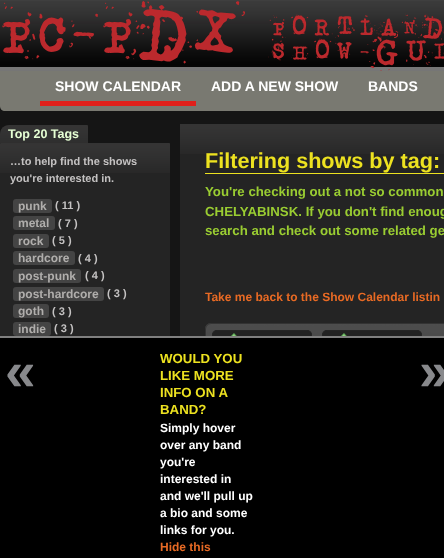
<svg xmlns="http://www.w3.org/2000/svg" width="444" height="558">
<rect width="100%" height="100%" fill="#151515"/>
<image x="0" y="0" width="444" height="71" href="media/1.png"/>
<text x="0" y="52" style="font-family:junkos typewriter;font-size:60px;letter-spacing:-12px;fill:#bb292d">P</text>
<text x="37" y="52" style="font-family:junkos typewriter;font-size:60px;letter-spacing:-12px;fill:#bb292d">C</text>
<text x="72" y="52" style="font-family:junkos typewriter;font-size:60px;letter-spacing:-12px;fill:#bb292d">-</text>
<text x="101" y="52" style="font-family:junkos typewriter;font-size:60px;letter-spacing:-12px;fill:#bb292d">P</text>
<text x="137" y="52" style="font-family:junkos typewriter;font-size:60px;letter-spacing:-12px;fill:#bb292d">D</text>
<text x="192" y="52" style="font-family:junkos typewriter;font-size:60px;letter-spacing:-12px;fill:#bb292d">X</text>
<text x="272" y="35" style="font-family:junkos typewriter;font-size:24px;fill:#bb292d">P O R T L A N D</text>
<text x="272" y="59" style="font-family:junkos typewriter;font-size:24px;fill:#bb292d">S H O W - G U I</text>
<path d="M0 71h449v35c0 3-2 5-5 5h-439c-3 0-5-2-5-5z" fill="#797971"/>
<text x="55" y="91" style="font-family:Liberation Sans;font-size:14px;font-weight:bold;fill:#fff">SHOW CALENDAR</text>
<text x="211" y="91" style="font-family:Liberation Sans;font-size:14px;font-weight:bold;fill:#fff">ADD A NEW SHOW</text>
<text x="368" y="91" style="font-family:Liberation Sans;font-size:14px;font-weight:bold;fill:#fff">BANDS</text>
<rect x="40" y="101" width="156" height="5" fill="#e0201b"/>
<path d="M9 125h77.5c1 0 1.5 .5 1.5 1.5v16.5h-88v-9c0-5 4-9 9-9z" fill="#242424"/>
<image x="0" y="125" width="88" height="18" href="media/2.png"/>
<text x="8" y="138" style="font-family:Liberation Sans;font-size:12.5px;font-weight:bold;fill:#e6ffd4">Top 20 Tags</text>
<rect y="143" width="170" height="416" rx="1" fill="#242424"/>
<image x="0" y="143" width="170" height="30" href="media/3.png"/>
<text x="10" y="165" style="font-family:Liberation Sans;font-size:11px;font-weight:bold;fill:#c4c2c2">…to help find the shows</text>
<text x="10" y="182" style="font-family:Liberation Sans;font-size:11px;font-weight:bold;fill:#c4c2c2">you're interested in.</text>
<rect x="13" y="199" width="39" height="14" rx="3" fill="#444"/>
<text x="18" y="210" style="font-family:Liberation Sans;font-size:12px;font-weight:bold;fill:#b0aeac">punk</text>
<text x="55" y="209" style="font-family:Liberation Sans;font-size:11px;font-weight:bold;fill:#c4c2c2">( 11 )</text>
<rect x="13" y="216" width="42" height="14" rx="3" fill="#444"/>
<text x="18" y="227" style="font-family:Liberation Sans;font-size:12px;font-weight:bold;fill:#b0aeac">metal</text>
<text x="58" y="227" style="font-family:Liberation Sans;font-size:11px;font-weight:bold;fill:#c4c2c2">( 7 )</text>
<rect x="13" y="234" width="36" height="14" rx="3" fill="#444"/>
<text x="18" y="245" style="font-family:Liberation Sans;font-size:12px;font-weight:bold;fill:#b0aeac">rock</text>
<text x="52" y="244" style="font-family:Liberation Sans;font-size:11px;font-weight:bold;fill:#c4c2c2">( 5 )</text>
<rect x="13" y="251" width="62" height="14" rx="3" fill="#444"/>
<text x="18" y="262" style="font-family:Liberation Sans;font-size:12px;font-weight:bold;fill:#b0aeac">hardcore</text>
<text x="78" y="262" style="font-family:Liberation Sans;font-size:11px;font-weight:bold;fill:#c4c2c2">( 4 )</text>
<rect x="13" y="269" width="68" height="14" rx="3" fill="#444"/>
<text x="18" y="280" style="font-family:Liberation Sans;font-size:12px;font-weight:bold;fill:#b0aeac">post-punk</text>
<text x="85" y="279" style="font-family:Liberation Sans;font-size:11px;font-weight:bold;fill:#c4c2c2">( 4 )</text>
<rect x="13" y="287" width="91" height="14" rx="3" fill="#444"/>
<text x="18" y="298" style="font-family:Liberation Sans;font-size:12px;font-weight:bold;fill:#b0aeac">post-hardcore</text>
<text x="107" y="297" style="font-family:Liberation Sans;font-size:11px;font-weight:bold;fill:#c4c2c2">( 3 )</text>
<rect x="13" y="304" width="36" height="14" rx="3" fill="#444"/>
<text x="18" y="315" style="font-family:Liberation Sans;font-size:12px;font-weight:bold;fill:#b0aeac">goth</text>
<text x="52" y="315" style="font-family:Liberation Sans;font-size:11px;font-weight:bold;fill:#c4c2c2">( 3 )</text>
<rect x="13" y="322" width="38" height="14" rx="3" fill="#444"/>
<text x="18" y="333" style="font-family:Liberation Sans;font-size:12px;font-weight:bold;fill:#b0aeac">indie</text>
<text x="54" y="332" style="font-family:Liberation Sans;font-size:11px;font-weight:bold;fill:#c4c2c2">( 3 )</text>
<rect x="180" y="154" width="264" height="182" fill="#242424"/>
<image x="180" y="124" width="264" height="30" href="media/4.png"/>
<rect x="205" y="173" width="239" height="1" fill="#ede220"/>
<text x="205" y="168" style="font-family:Liberation Sans;font-size:21.6px;font-weight:bold;fill:#ede220">Filtering shows by tag:</text>
<text x="205" y="196" style="font-family:Liberation Sans;font-size:13.25px;font-weight:bold;fill:#9acd32">You're checking out a not so common</text>
<text x="205" y="216" style="font-family:Liberation Sans;font-size:13.25px;font-weight:bold;fill:#9acd32">CHELYABINSK. If you don't find enoug</text>
<text x="205" y="235" style="font-family:Liberation Sans;font-size:13.25px;font-weight:bold;fill:#9acd32">search and check out some related ge</text>
<text x="205" y="301" style="font-family:Liberation Sans;font-size:12px;font-weight:bold;fill:#e86a24">Take me back to the Show Calendar listin</text>
<image x="205" y="323" width="239" height="13" href="media/5.png"/>
<path d="M211 323.5h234c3 0 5.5 2.5 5.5 5.5v26.5h-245v-26.5c0-3 2.5-5.5 5.5-5.5z" fill="none" stroke="#333"/>
<rect x="212" y="330" width="100" height="19" rx="5" fill="#222"/>
<image x="231" y="333" width="6" height="3" href="media/6.png"/>
<rect x="212.5" y="330.5" width="99" height="18" rx="4.5" fill="none" stroke="#252525"/>
<rect x="322" y="330" width="100" height="19" rx="5" fill="#222"/>
<image x="341" y="333" width="6" height="3" href="media/6.png"/>
<rect x="322.5" y="330.5" width="99" height="18" rx="4.5" fill="none" stroke="#252525"/>
<rect y="338" width="444" height="220" fill="#000"/>
<rect y="336" width="444" height="2" fill="#808080"/>
<text x="5" y="390" style="font-family:Liberation Sans;font-size:55px;font-weight:bold;fill:#88898c">«</text>
<text x="160" y="363" style="font-family:Liberation Sans;font-size:13.25px;font-weight:bold;fill:#ede220">WOULD YOU</text>
<text x="160" y="380" style="font-family:Liberation Sans;font-size:13.25px;font-weight:bold;fill:#ede220">LIKE MORE</text>
<text x="160" y="397" style="font-family:Liberation Sans;font-size:13.25px;font-weight:bold;fill:#ede220">INFO ON A</text>
<text x="160" y="414" style="font-family:Liberation Sans;font-size:13.25px;font-weight:bold;fill:#ede220">BAND?</text>
<text x="160" y="432" style="font-family:Liberation Sans;font-size:12px;font-weight:bold;fill:#fff">Simply hover</text>
<text x="160" y="449" style="font-family:Liberation Sans;font-size:12px;font-weight:bold;fill:#fff">over any band</text>
<text x="160" y="466" style="font-family:Liberation Sans;font-size:12px;font-weight:bold;fill:#fff">you're</text>
<text x="160" y="483" style="font-family:Liberation Sans;font-size:12px;font-weight:bold;fill:#fff">interested in</text>
<text x="160" y="500" style="font-family:Liberation Sans;font-size:12px;font-weight:bold;fill:#fff">and we'll pull up</text>
<text x="160" y="517" style="font-family:Liberation Sans;font-size:12px;font-weight:bold;fill:#fff">a bio and some</text>
<text x="160" y="534" style="font-family:Liberation Sans;font-size:12px;font-weight:bold;fill:#fff">links for you.</text>
<text x="160" y="551" style="font-family:Liberation Sans;font-size:12px;font-weight:bold;fill:#e86a24">Hide this</text>
<text x="419" y="390" style="font-family:Liberation Sans;font-size:55px;font-weight:bold;fill:#88898c">»</text>
</svg>
